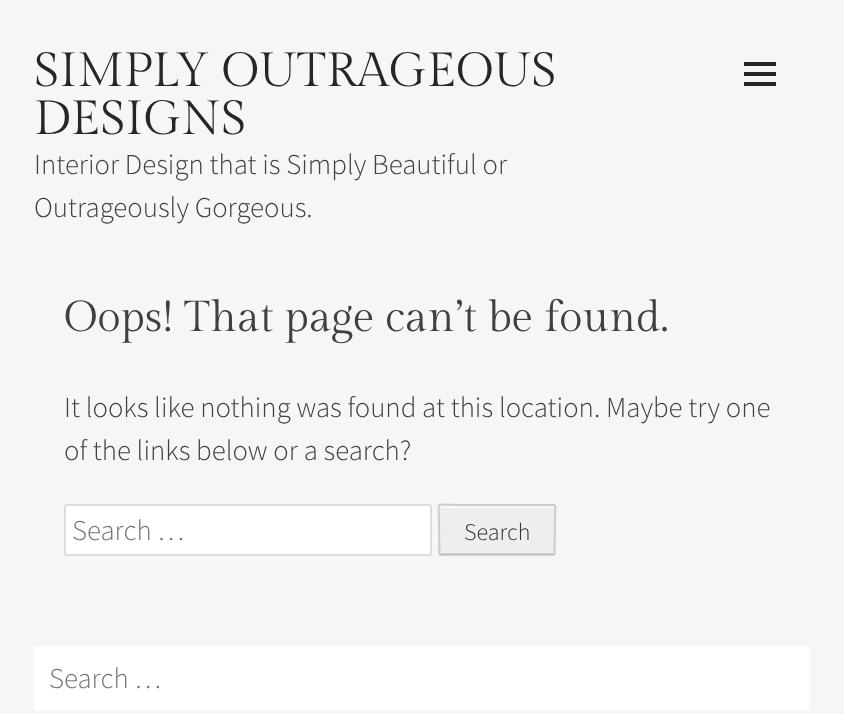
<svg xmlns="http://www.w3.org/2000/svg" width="844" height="714">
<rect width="100%" height="100%" fill="#f6f6f6"/>
<text x="34" y="86" style="font-family:Gilda Display;font-size:48px;fill:#262626">SIMPLY OUTRAGEOUS</text>
<text x="34" y="134" style="font-family:Gilda Display;font-size:48px;fill:#262626">DESIGNS</text>
<text x="34" y="174" style="font-family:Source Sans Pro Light;font-size:28.8px;font-weight:300;fill:#404040">Interior Design that is Simply Beautiful or</text>
<text x="34" y="217" style="font-family:Source Sans Pro Light;font-size:28.8px;font-weight:300;fill:#404040">Outrageously Gorgeous.</text>
<image x="744" y="62" width="32" height="24" href="media/1.png"/>
<text x="64" y="331" style="font-family:Gilda Display;font-size:43.25px;fill:#404040">Oops! That page can’t be found.</text>
<text x="64" y="417" style="font-family:Source Sans Pro Light;font-size:28.8px;font-weight:300;fill:#404040">It looks like nothing was found at this location. Maybe try one</text>
<text x="64" y="460" style="font-family:Source Sans Pro Light;font-size:28.8px;font-weight:300;fill:#404040">of the links below or a search?</text>
<rect x="65" y="505" width="366" height="50" rx="1" fill="#fff" stroke="#ddd" stroke-width="2"/>
<text x="72" y="540" style="font-family:Source Sans Pro Light;font-size:28.8px;font-weight:300;fill:#757575">Search …</text>
<rect x="438" y="504" width="118" height="52" rx="2" fill="#eee"/>
<rect x="440" y="506" width="114" height="2" fill="#f7f7f7"/>
<path d="M554.5 554.5h-115" fill="none" stroke="#bbb" stroke-width="2"/>
<path d="M439.5 554.5l-.5-32.5c0-22.5-5-17 20-17h95c2.5 0 1 8.5 1 9l-.5 40.5" fill="none" stroke="#ccc" stroke-width="2"/>
<text x="464" y="540" style="font-family:Source Sans Pro Light;font-size:24px;font-weight:300;fill:#303030">Search</text>
<rect x="34" y="646" width="776" height="64" rx="2" fill="#fff"/>
<text x="49" y="688" style="font-family:Source Sans Pro Light;font-size:28.8px;font-weight:300;fill:#757575">Search …</text>
</svg>
